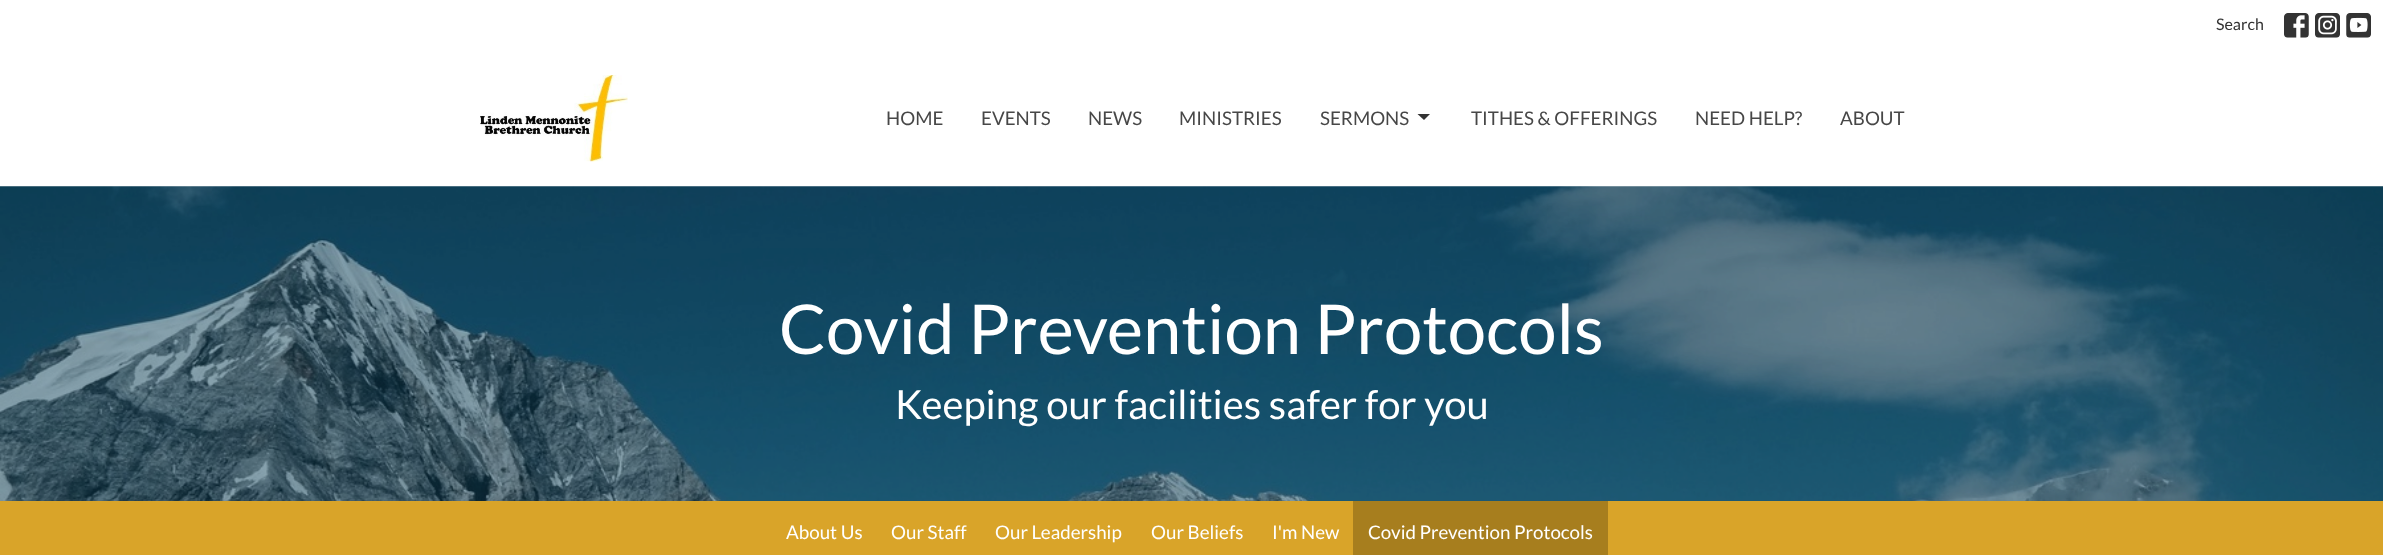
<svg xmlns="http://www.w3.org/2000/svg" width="2383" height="555">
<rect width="100%" height="100%" fill="#fff"/>
<text x="2216" y="30" style="font-family:Lato;font-size:16px;fill:#333">Search</text>
<image x="2284" y="13" width="25" height="25" href="media/1.png"/>
<image x="2315" y="13" width="25" height="25" href="media/2.png"/>
<image x="2346" y="13" width="25" height="25" href="media/3.png"/>
<image x="480" y="75" width="148" height="87" href="media/4.png"/>
<text x="886" y="125" style="font-family:Lato;font-size:18.75px;fill:#474747">HOME</text>
<text x="981" y="125" style="font-family:Lato;font-size:18.75px;fill:#474747">EVENTS</text>
<text x="1088" y="125" style="font-family:Lato;font-size:18.75px;fill:#474747">NEWS</text>
<text x="1179" y="125" style="font-family:Lato;font-size:18.75px;fill:#474747">MINISTRIES</text>
<text x="1320" y="125" style="font-family:Lato;font-size:18.75px;fill:#474747">SERMONS</text>
<path d="M1417.5 114l6.5 6l6-6z" fill="#333"/>
<text x="1471" y="125" style="font-family:Lato;font-size:18.75px;fill:#474747">TITHES &amp; OFFERINGS</text>
<text x="1695" y="125" style="font-family:Lato;font-size:18.75px;fill:#474747">NEED HELP?</text>
<text x="1840" y="125" style="font-family:Lato;font-size:18.75px;fill:#474747">ABOUT</text>
<image x="0" y="186" width="2383" height="315" href="media/5.png"/>
<text x="779" y="354" style="font-family:Lato;font-size:68.75px;fill:#fff">Covid Prevention Protocols</text>
<text x="895" y="419" style="font-family:Lato;font-size:40px;fill:#fff">Keeping our facilities safer for you</text>
<rect y="501" width="2383" height="54" fill="#d9a429"/>
<text x="786" y="539" style="font-family:Lato;font-size:18.75px;fill:#fff">About Us</text>
<text x="891" y="539" style="font-family:Lato;font-size:18.75px;fill:#fff">Our Staff</text>
<text x="995" y="539" style="font-family:Lato;font-size:18.75px;fill:#fff">Our Leadership</text>
<text x="1151" y="539" style="font-family:Lato;font-size:18.75px;fill:#fff">Our Beliefs</text>
<text x="1272" y="539" style="font-family:Lato;font-size:18.75px;fill:#fff">I'm New</text>
<rect x="1353" y="501" width="255" height="54" fill="#a77e1e"/>
<text x="1368" y="539" style="font-family:Lato;font-size:18.75px;fill:#fff">Covid Prevention Protocols</text>
</svg>
